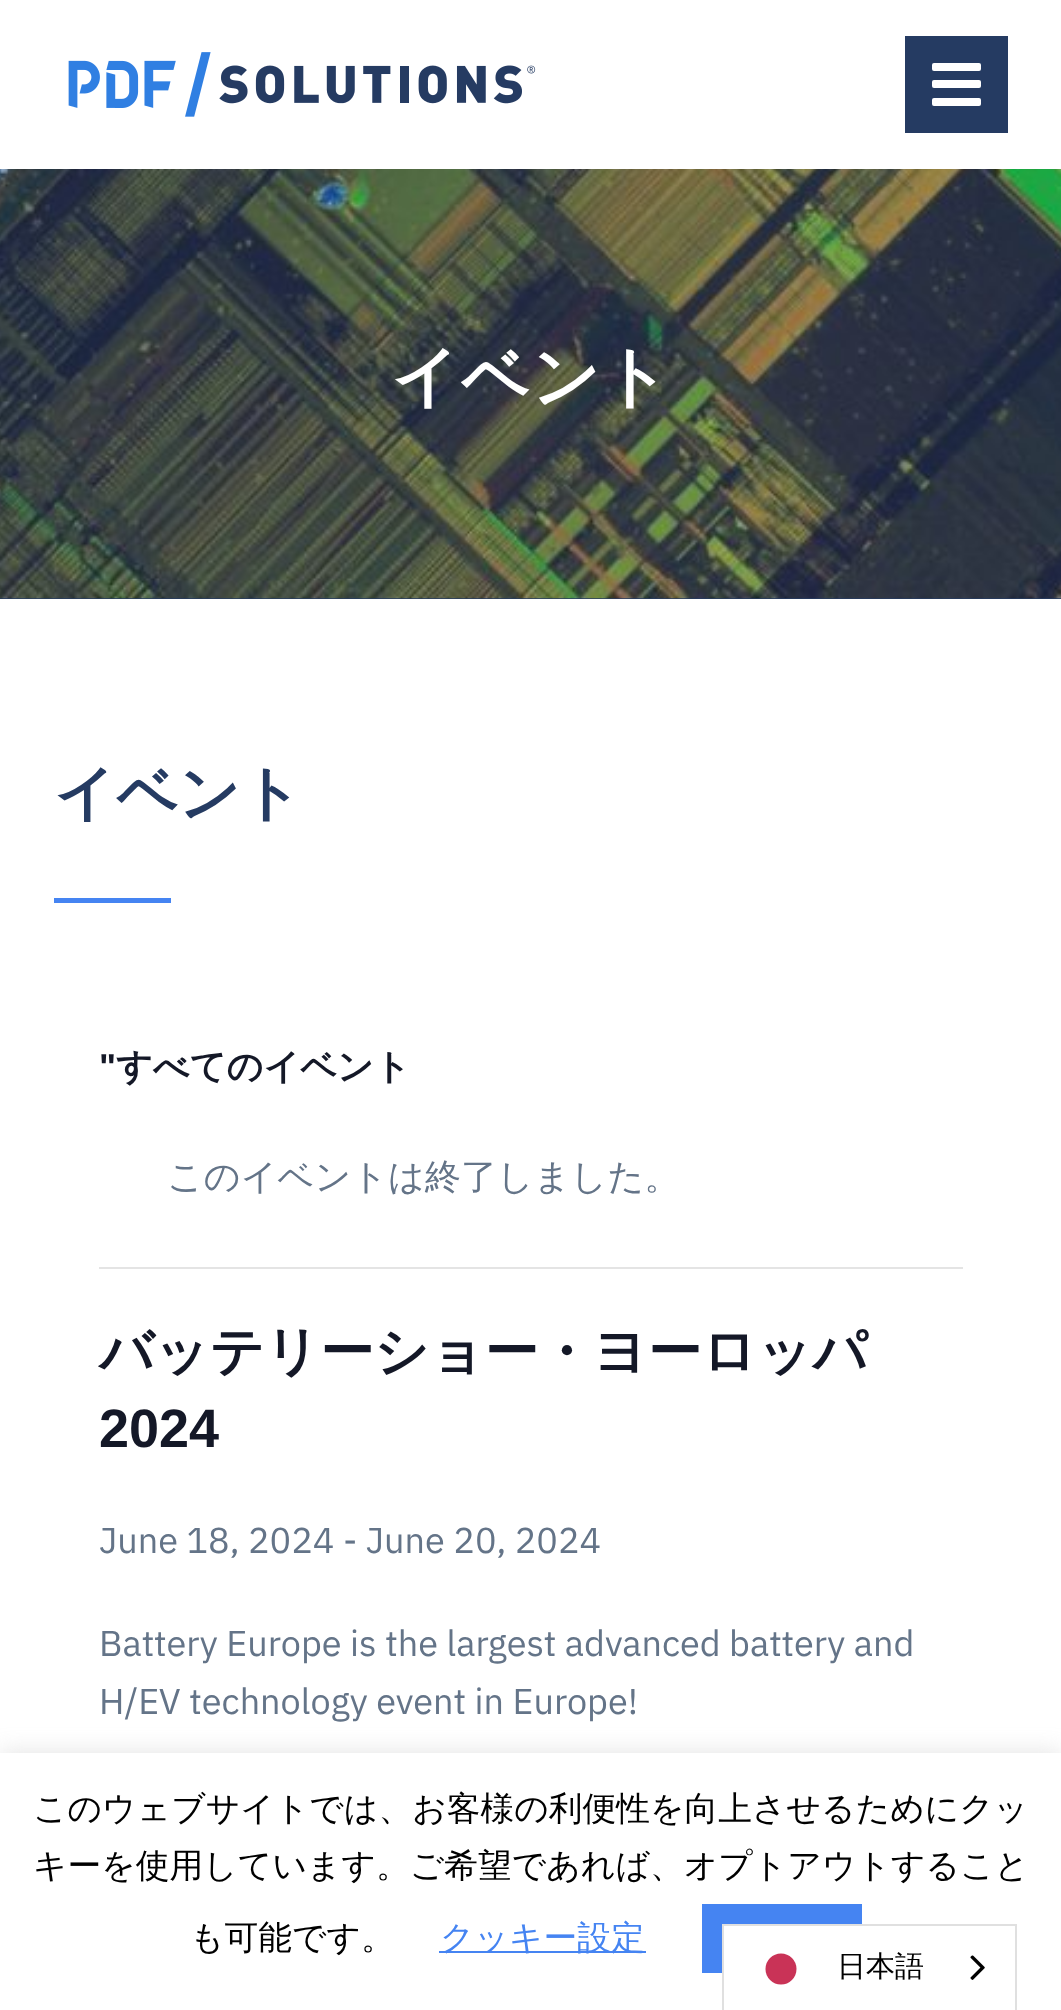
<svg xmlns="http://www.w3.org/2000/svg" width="1061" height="2010">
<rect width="100%" height="100%" fill="#fff"/>
<image x="68" y="52" width="468" height="65" href="media/1.png"/>
<rect x="905" y="36" width="103" height="97" fill="#253b62"/>
<rect x="932" y="63" width="49" height="8" rx="2" fill="#fff"/>
<rect x="932" y="80" width="49" height="8" rx="2" fill="#fff"/>
<rect x="932" y="98" width="49" height="8" rx="2" fill="#fff"/>
<rect y="598" width="1061" height="1" fill="#253b62"/>
<image x="0" y="169" width="1061" height="430" href="media/2.png"/>
<text x="391" y="400" style="font-family:WenQuanYi Zen Hei;font-size:67.5px;font-weight:bold;letter-spacing:1px;fill:#fff">イベント</text>
<text x="54" y="814" style="font-family:WenQuanYi Zen Hei;font-size:60.75px;font-weight:bold;fill:#253b62">イベント</text>
<rect x="54" y="898" width="117" height="5" fill="#4584f2"/>
<text x="99" y="1079" style="font-family:Liberation Sans;font-size:36px;font-weight:bold;fill:#141827">"</text>
<text x="116" y="1079" style="font-family:WenQuanYi Zen Hei;font-size:36px;font-weight:bold;fill:#141827">すべてのイベント</text>
<rect x="99" y="1267" width="864" height="2" fill="#e4e4e4"/>
<text x="167" y="1189" style="font-family:WenQuanYi Zen Hei;font-size:36px;font-weight:500;fill:#647488">このイベントは終了しました。</text>
<text x="99" y="1370" style="font-family:WenQuanYi Zen Hei;font-size:54px;font-weight:bold;fill:#141827">バッテリーショー・ヨーロッパ</text>
<text x="99" y="1447" style="font-family:Liberation Sans;font-size:54px;font-weight:bold;fill:#141827">2024</text>
<text x="99" y="1553" style="font-family:IBM Plex Sans;font-size:36px;fill:#647488">June 18, 2024 - June 20, 2024</text>
<text x="99" y="1656" style="font-family:IBM Plex Sans;font-size:36px;fill:#647488">Battery Europe is the largest advanced battery and</text>
<text x="99" y="1714" style="font-family:IBM Plex Sans;font-size:36px;fill:#647488">H/EV technology event in Europe!</text>
<rect y="1751" width="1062" height="258" fill="#acabab4d" filter="blur(11px)"/>
<rect y="1753" width="1061" height="257" fill="#fff"/>
<text x="33" y="1820" style="font-family:WenQuanYi Zen Hei;font-size:33.75px;font-weight:500;fill:#000">このウェブサイトでは、お客様の利便性を向上させるためにクッ</text>
<text x="33" y="1877" style="font-family:WenQuanYi Zen Hei;font-size:33.75px;font-weight:500;fill:#000">キーを使用しています。ご希望であれば、オプトアウトすること</text>
<text x="190" y="1949" style="font-family:WenQuanYi Zen Hei;font-size:33.75px;font-weight:500;fill:#000">も可能です。</text>
<rect x="439" y="1951" width="207" height="2" fill="#4584f2"/>
<text x="440" y="1949" style="font-family:WenQuanYi Zen Hei;font-size:33.75px;font-weight:500;fill:#4584f2">クッキー設定</text>
<rect x="702" y="1904" width="160" height="69" fill="#4584f2"/>
<rect x="724" y="1926" width="138" height="47" fill="#fff"/>
<rect x="723" y="1925" width="293" height="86" fill="none" stroke="#e0e0e0" stroke-width="2"/>
<circle cx="781" cy="1969" r="15.5" fill="#bc002d"/>
<rect x="765" y="1953" width="32" height="32" fill="#ffffff33"/>
<text x="837" y="1976" style="font-family:WenQuanYi Zen Hei;font-size:29px;font-weight:500;fill:#000">日本語</text>
<image x="970" y="1955" width="15" height="25" href="media/3.png"/>
</svg>
